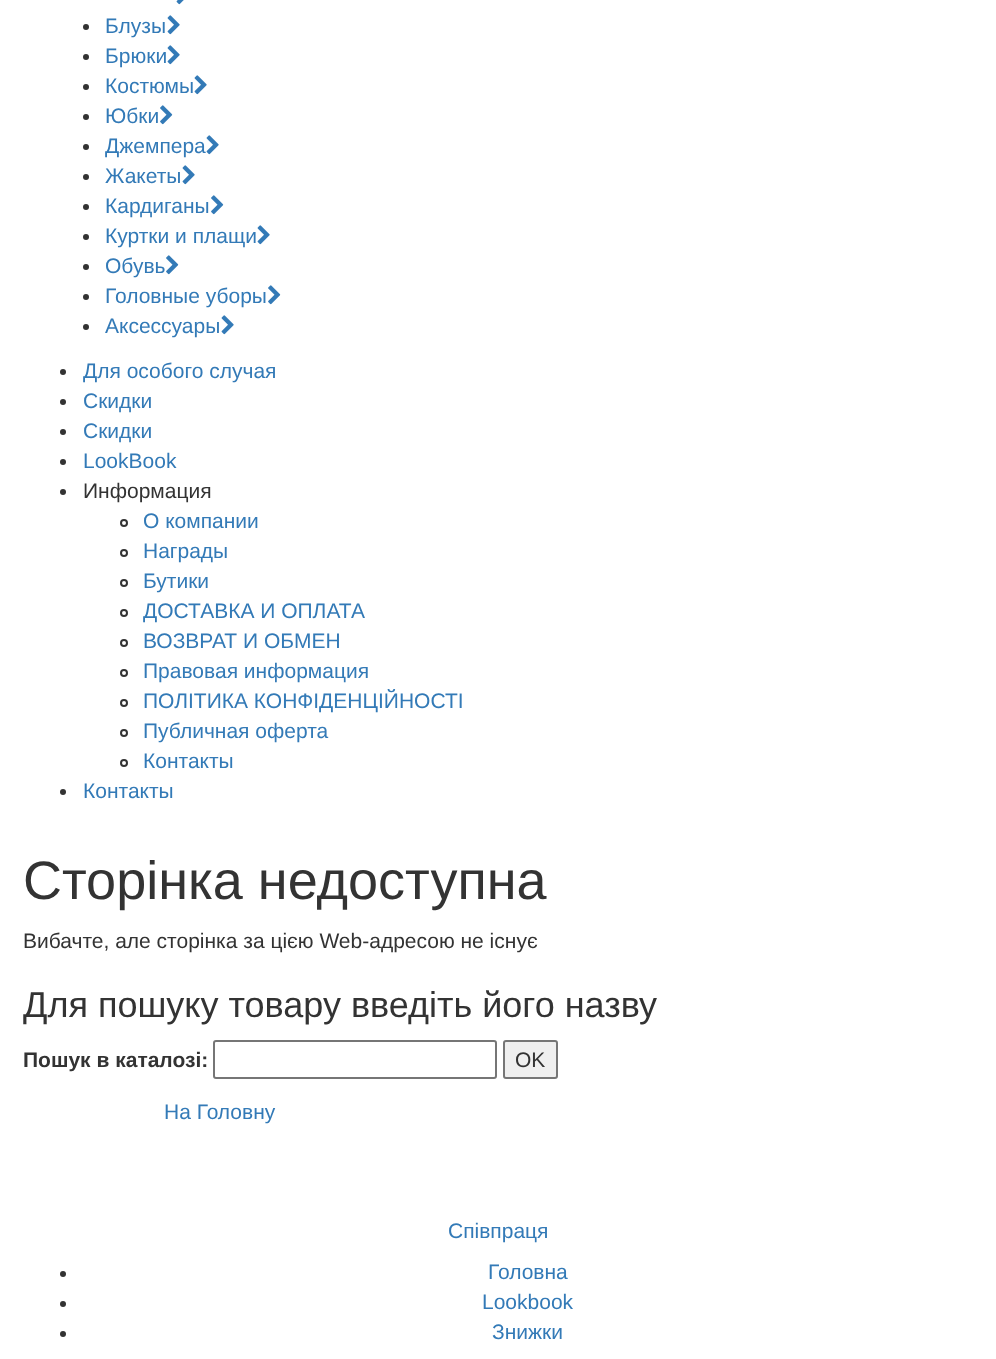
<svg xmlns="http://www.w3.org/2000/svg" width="996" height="1359">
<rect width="100%" height="100%" fill="#fff"/>
<image x="176" y="0" width="8" height="5" href="media/1.png"/>
<circle cx="86" cy="27" r="3" fill="#333"/>
<text x="105" y="33" style="font-family:Liberation Sans;font-size:21px;fill:#337ab7">Блузы</text>
<image x="167" y="15" width="13" height="20" href="media/2.png"/>
<circle cx="86" cy="57" r="3" fill="#333"/>
<text x="105" y="63" style="font-family:Liberation Sans;font-size:21px;fill:#337ab7">Брюки</text>
<image x="167" y="45" width="13" height="20" href="media/2.png"/>
<circle cx="86" cy="87" r="3" fill="#333"/>
<text x="105" y="93" style="font-family:Liberation Sans;font-size:21px;fill:#337ab7">Костюмы</text>
<image x="194" y="75" width="13" height="20" href="media/2.png"/>
<circle cx="86" cy="117" r="3" fill="#333"/>
<text x="105" y="123" style="font-family:Liberation Sans;font-size:21px;fill:#337ab7">Юбки</text>
<image x="160" y="105" width="13" height="20" href="media/3.png"/>
<circle cx="86" cy="147" r="3" fill="#333"/>
<text x="105" y="153" style="font-family:Liberation Sans;font-size:21px;fill:#337ab7">Джемпера</text>
<image x="206" y="135" width="13" height="20" href="media/2.png"/>
<circle cx="86" cy="177" r="3" fill="#333"/>
<text x="105" y="183" style="font-family:Liberation Sans;font-size:21px;fill:#337ab7">Жакеты</text>
<image x="182" y="165" width="13" height="20" href="media/2.png"/>
<circle cx="86" cy="207" r="3" fill="#333"/>
<text x="105" y="213" style="font-family:Liberation Sans;font-size:21px;fill:#337ab7">Кардиганы</text>
<image x="211" y="195" width="13" height="20" href="media/3.png"/>
<circle cx="86" cy="237" r="3" fill="#333"/>
<text x="105" y="243" style="font-family:Liberation Sans;font-size:21px;fill:#337ab7">Куртки и плащи</text>
<image x="257" y="225" width="13" height="20" href="media/2.png"/>
<circle cx="86" cy="267" r="3" fill="#333"/>
<text x="105" y="273" style="font-family:Liberation Sans;font-size:21px;fill:#337ab7">Обувь</text>
<image x="166" y="255" width="13" height="20" href="media/3.png"/>
<circle cx="86" cy="297" r="3" fill="#333"/>
<text x="105" y="303" style="font-family:Liberation Sans;font-size:21px;fill:#337ab7">Головные уборы</text>
<image x="268" y="285" width="13" height="20" href="media/3.png"/>
<circle cx="86" cy="327" r="3" fill="#333"/>
<text x="105" y="333" style="font-family:Liberation Sans;font-size:21px;fill:#337ab7">Аксессуары</text>
<image x="221" y="315" width="13" height="20" href="media/2.png"/>
<circle cx="63" cy="372" r="3" fill="#333"/>
<text x="83" y="378" style="font-family:Liberation Sans;font-size:21px;fill:#337ab7">Для особого случая</text>
<circle cx="63" cy="402" r="3" fill="#333"/>
<text x="83" y="408" style="font-family:Liberation Sans;font-size:21px;fill:#337ab7">Скидки</text>
<circle cx="63" cy="432" r="3" fill="#333"/>
<text x="83" y="438" style="font-family:Liberation Sans;font-size:21px;fill:#337ab7">Скидки</text>
<circle cx="63" cy="462" r="3" fill="#333"/>
<text x="83" y="468" style="font-family:Liberation Sans;font-size:21px;fill:#337ab7">LookBook</text>
<circle cx="63" cy="492" r="3" fill="#333"/>
<text x="83" y="498" style="font-family:Liberation Sans;font-size:21px;fill:#333">Информация</text>
<circle cx="124" cy="523" r="3" fill="none" stroke="#333" stroke-width="2"/>
<text x="143" y="528" style="font-family:Liberation Sans;font-size:21px;fill:#337ab7">О компании</text>
<circle cx="124" cy="553" r="3" fill="none" stroke="#333" stroke-width="2"/>
<text x="143" y="558" style="font-family:Liberation Sans;font-size:21px;fill:#337ab7">Награды</text>
<circle cx="124" cy="583" r="3" fill="none" stroke="#333" stroke-width="2"/>
<text x="143" y="588" style="font-family:Liberation Sans;font-size:21px;fill:#337ab7">Бутики</text>
<circle cx="124" cy="613" r="3" fill="none" stroke="#333" stroke-width="2"/>
<text x="143" y="618" style="font-family:Liberation Sans;font-size:21px;fill:#337ab7">ДОСТАВКА И ОПЛАТА</text>
<circle cx="124" cy="643" r="3" fill="none" stroke="#333" stroke-width="2"/>
<text x="143" y="648" style="font-family:Liberation Sans;font-size:21px;fill:#337ab7">ВОЗВРАТ И ОБМЕН</text>
<circle cx="124" cy="673" r="3" fill="none" stroke="#333" stroke-width="2"/>
<text x="143" y="678" style="font-family:Liberation Sans;font-size:21px;fill:#337ab7">Правовая информация</text>
<circle cx="124" cy="703" r="3" fill="none" stroke="#333" stroke-width="2"/>
<text x="143" y="708" style="font-family:Liberation Sans;font-size:21px;fill:#337ab7">ПОЛІТИКА КОНФІДЕНЦІЙНОСТІ</text>
<circle cx="124" cy="733" r="3" fill="none" stroke="#333" stroke-width="2"/>
<text x="143" y="738" style="font-family:Liberation Sans;font-size:21px;fill:#337ab7">Публичная оферта</text>
<circle cx="124" cy="763" r="3" fill="none" stroke="#333" stroke-width="2"/>
<text x="143" y="768" style="font-family:Liberation Sans;font-size:21px;fill:#337ab7">Контакты</text>
<circle cx="63" cy="792" r="3" fill="#333"/>
<text x="83" y="798" style="font-family:Liberation Sans;font-size:21px;fill:#337ab7">Контакты</text>
<text x="23" y="899" style="font-family:Liberation Sans;font-size:54px;fill:#333">Сторінка недоступна</text>
<text x="23" y="948" style="font-family:Liberation Sans;font-size:21px;fill:#333">Вибачте, але сторінка за цією Web-адресою не існує</text>
<text x="23" y="1017" style="font-family:Liberation Sans;font-size:36px;fill:#333">Для пошуку товару введіть його назву</text>
<text x="23" y="1067" style="font-family:Liberation Sans;font-size:21px;font-weight:bold;fill:#333">Пошук в каталозі:</text>
<rect x="214" y="1041" width="282" height="37" rx="2" fill="none" stroke="#767676" stroke-width="2"/>
<rect x="504" y="1041" width="53" height="37" rx="2" fill="#efefef" stroke="#767676" stroke-width="2"/>
<text x="515" y="1067" style="font-family:Liberation Sans;font-size:21px;fill:#333">OK</text>
<text x="164" y="1119" style="font-family:Liberation Sans;font-size:21px;fill:#337ab7">На Головну</text>
<text x="448" y="1238" style="font-family:Liberation Sans;font-size:21px;fill:#337ab7">Співпраця</text>
<circle cx="63" cy="1274" r="3" fill="#333"/>
<text x="488" y="1279" style="font-family:Liberation Sans;font-size:21px;fill:#337ab7">Головна</text>
<circle cx="63" cy="1304" r="3" fill="#333"/>
<text x="482" y="1309" style="font-family:Liberation Sans;font-size:21px;fill:#337ab7">Lookbook</text>
<circle cx="63" cy="1334" r="3" fill="#333"/>
<text x="492" y="1339" style="font-family:Liberation Sans;font-size:21px;fill:#337ab7">Знижки</text>
</svg>
